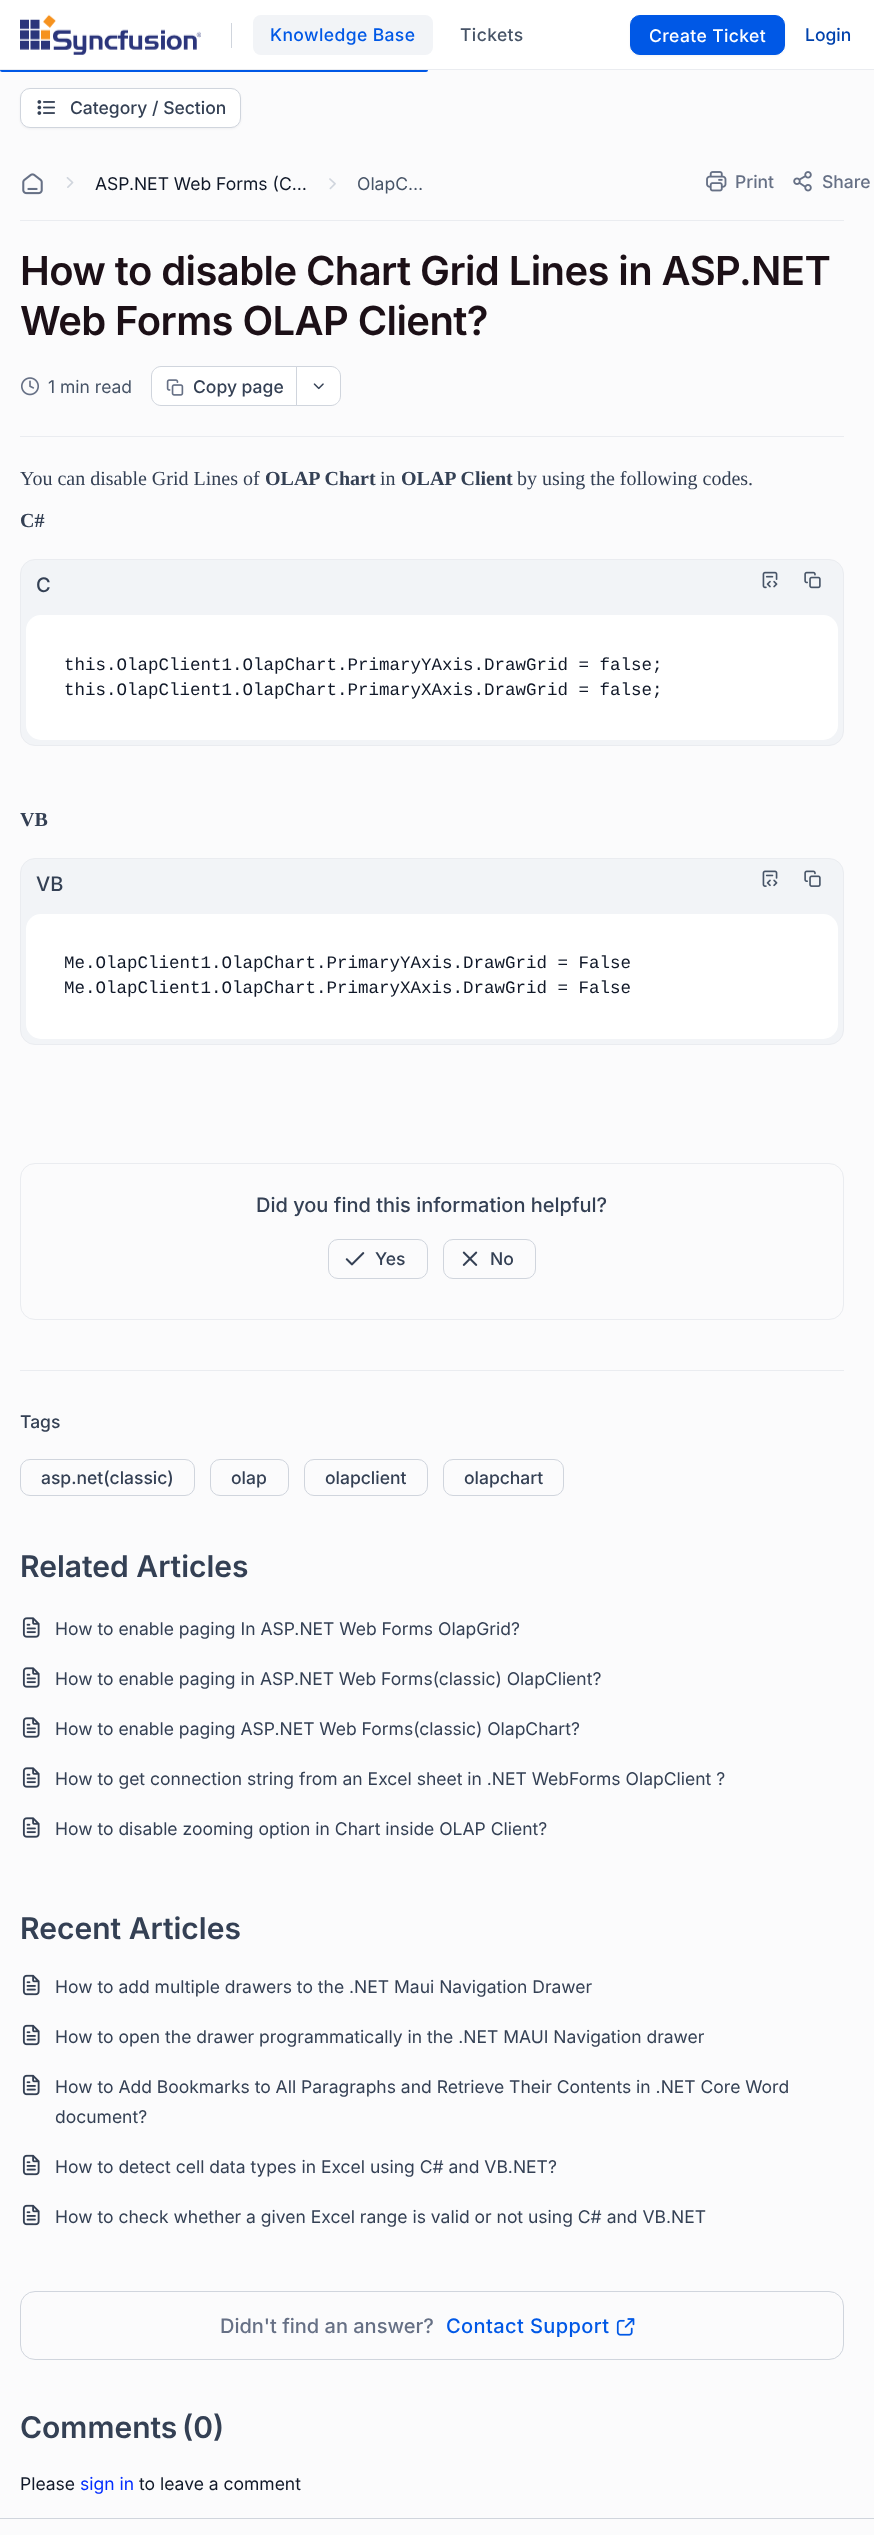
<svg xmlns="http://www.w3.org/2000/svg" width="874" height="2535">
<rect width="100%" height="100%" fill="#fbfbfc"/>
<rect y="68" width="428" height="4" rx="2" fill="#0058e6"/>
<rect width="874" height="69" fill="#fff"/>
<rect y="69" width="874" height="1" fill="#eaecf0"/>
<image x="20" y="14" width="181" height="41" href="media/1.png"/>
<rect x="231" y="23" width="1" height="25" fill="#d0d5dd"/>
<rect x="253" y="15" width="180" height="40" rx="8" fill="#f2f4f7"/>
<text x="270" y="41" style="font-family:Inter;font-size:17.5px;font-weight:500;letter-spacing:0.4px;fill:#0058e6">Knowledge Base</text>
<text x="460" y="41" style="font-family:Inter;font-size:17.5px;font-weight:500;letter-spacing:0.4px;fill:#475467">Tickets</text>
<rect x="630" y="16" width="155" height="40" rx="10" fill="#1018280d" filter="blur(1px)"/>
<rect x="630.5" y="15.5" width="154" height="39" rx="9.5" fill="#0058e6" stroke="#0058e6"/>
<text x="649" y="42" style="font-family:Inter;font-size:17.5px;font-weight:500;letter-spacing:0.4px;fill:#fff">Create Ticket</text>
<text x="805" y="41" style="font-family:Inter;font-size:17.5px;font-weight:500;fill:#0042ad">Login</text>
<rect x="20" y="89" width="221" height="40" rx="10" fill="#1018280d" filter="blur(1px)"/>
<rect x="20.5" y="88.5" width="220" height="39" rx="9.5" fill="#fff" stroke="#d0d5dd"/>
<image x="37" y="100" width="18" height="15" href="media/2.png"/>
<text x="70" y="114" style="font-family:Inter;font-size:17.5px;font-weight:500;fill:#344054">Category / Section</text>
<rect x="20" y="220" width="824" height="1" fill="#eaecf0"/>
<image x="22" y="173" width="21" height="22" href="media/3.png"/>
<image x="66" y="177" width="8" height="11" href="media/4.png"/>
<text x="95" y="190" style="font-family:Inter;font-size:17.5px;fill:#101828">ASP.NET Web Forms (C…</text>
<image x="329" y="178" width="7" height="12" href="media/5.png"/>
<text x="357" y="190" style="font-family:Inter;font-size:17.5px;fill:#475467">OlapC…</text>
<image x="706" y="171" width="21" height="21" href="media/6.png"/>
<text x="735" y="188" style="font-family:Inter;font-size:17.5px;font-weight:500;fill:#667085">Print</text>
<image x="793" y="171" width="19" height="21" href="media/7.png"/>
<text x="822" y="188" style="font-family:Inter;font-size:17.5px;font-weight:500;fill:#667085">Share</text>
<rect x="20" y="436" width="824" height="1" fill="#eaecf0"/>
<text x="20" y="285" style="font-family:Inter;font-size:40px;font-weight:600;letter-spacing:-0.6px;fill:#1c1017">How to disable Chart Grid Lines in ASP.NET</text>
<text x="20" y="335" style="font-family:Inter;font-size:40px;font-weight:600;letter-spacing:-0.6px;fill:#1c1017">Web Forms OLAP Client?</text>
<image x="21" y="377" width="18" height="19" href="media/8.png"/>
<text x="48" y="393" style="font-family:Inter;font-size:17.5px;fill:#475467">1 min read</text>
<path d="M161 366.5h136.5v39h-136.5c-5 0-9.5-4.5-9.5-9.5v-20c0-5 4.5-9.5 9.5-9.5z" fill="#fff" stroke="#d0d5dd"/>
<image x="166" y="379" width="18" height="17" href="media/9.png"/>
<text x="193" y="393" style="font-family:Inter;font-size:17.5px;font-weight:500;fill:#344054">Copy page</text>
<path d="M296.5 366.5h34.5c5 0 9.5 4.5 9.5 9.5v20c0 5-4.5 9.5-9.5 9.5h-34.5z" fill="#fff" stroke="#d0d5dd"/>
<image x="313" y="383" width="11" height="7" href="media/10.png"/>
<text x="20" y="485" style="font-family:Liberation Serif;font-size:20px;fill:#344054">You can disable Grid Lines of</text>
<text x="265" y="485" style="font-family:Liberation Serif;font-size:20px;font-weight:bold;fill:#344054">OLAP Chart</text>
<text x="380" y="485" style="font-family:Liberation Serif;font-size:20px;fill:#344054">in</text>
<text x="401" y="485" style="font-family:Liberation Serif;font-size:20px;font-weight:bold;fill:#344054">OLAP Client</text>
<text x="517" y="485" style="font-family:Liberation Serif;font-size:20px;fill:#344054">by using the following codes.</text>
<text x="20" y="527" style="font-family:Liberation Serif;font-size:20px;font-weight:bold;fill:#344054">C#</text>
<rect x="20.5" y="559.5" width="823" height="186" rx="14.5" fill="#f2f4f7" stroke="#eaecf0"/>
<text x="36" y="592" style="font-family:Inter;font-size:20px;font-weight:500;fill:#344054">C</text>
<image x="762" y="571" width="16" height="18" href="media/11.png"/>
<image x="804" y="571" width="17" height="18" href="media/12.png"/>
<rect x="26" y="615" width="812" height="125" rx="15" fill="#fff"/>
<text x="64" y="670" style="font-family:Liberation Mono;font-size:17.5px;fill:#101828">this.OlapClient1.OlapChart.PrimaryYAxis.DrawGrid = false;</text>
<text x="64" y="695" style="font-family:Liberation Mono;font-size:17.5px;fill:#101828">this.OlapClient1.OlapChart.PrimaryXAxis.DrawGrid = false;</text>
<text x="20" y="826" style="font-family:Liberation Serif;font-size:20px;font-weight:bold;fill:#344054">VB</text>
<rect x="20.5" y="858.5" width="823" height="186" rx="14.5" fill="#f2f4f7" stroke="#eaecf0"/>
<text x="36" y="891" style="font-family:Inter;font-size:20px;font-weight:500;fill:#344054">VB</text>
<image x="762" y="870" width="16" height="17" href="media/13.png"/>
<image x="804" y="870" width="17" height="17" href="media/14.png"/>
<rect x="26" y="914" width="812" height="125" rx="15" fill="#fff"/>
<text x="64" y="968" style="font-family:Liberation Mono;font-size:17.5px;fill:#101828">Me.OlapClient1.OlapChart.PrimaryYAxis.DrawGrid = False</text>
<text x="64" y="993" style="font-family:Liberation Mono;font-size:17.5px;fill:#101828">Me.OlapClient1.OlapChart.PrimaryXAxis.DrawGrid = False</text>
<rect x="20.5" y="1163.5" width="823" height="156" rx="14.5" fill="none" stroke="#eaecf0"/>
<text x="256" y="1212" style="font-family:Inter;font-size:20px;font-weight:500;fill:#344054">Did you find this information helpful?</text>
<rect x="328.5" y="1239.5" width="99" height="39" rx="9.5" fill="none" stroke="#d0d5dd"/>
<image x="345" y="1252" width="20" height="14" href="media/15.png"/>
<text x="375" y="1265" style="font-family:Inter;font-size:17.5px;font-weight:500;fill:#344054">Yes</text>
<rect x="443.5" y="1239.5" width="92" height="39" rx="9.5" fill="none" stroke="#d0d5dd"/>
<image x="462" y="1251" width="16" height="15" href="media/16.png"/>
<text x="490" y="1265" style="font-family:Inter;font-size:17.5px;font-weight:500;fill:#344054">No</text>
<rect x="20" y="1370" width="824" height="1" fill="#eaecf0"/>
<text x="20" y="1428" style="font-family:Inter;font-size:17.5px;font-weight:500;fill:#344054">Tags</text>
<rect x="20.5" y="1459.5" width="174" height="36" rx="9.5" fill="none" stroke="#d0d5dd"/>
<text x="41" y="1484" style="font-family:Inter;font-size:17.5px;font-weight:500;fill:#344054">asp.net(classic)</text>
<rect x="210.5" y="1459.5" width="78" height="36" rx="9.5" fill="none" stroke="#d0d5dd"/>
<text x="231" y="1484" style="font-family:Inter;font-size:17.5px;font-weight:500;fill:#344054">olap</text>
<rect x="304.5" y="1459.5" width="123" height="36" rx="9.5" fill="none" stroke="#d0d5dd"/>
<text x="325" y="1484" style="font-family:Inter;font-size:17.5px;font-weight:500;fill:#344054">olapclient</text>
<rect x="443.5" y="1459.5" width="120" height="36" rx="9.5" fill="none" stroke="#d0d5dd"/>
<text x="464" y="1484" style="font-family:Inter;font-size:17.5px;font-weight:500;fill:#344054">olapchart</text>
<text x="20" y="1577" style="font-family:Inter;font-size:30px;font-weight:600;fill:#344054">Related Articles</text>
<image x="22" y="1617" width="18" height="21" href="media/17.png"/>
<text x="55" y="1635" style="font-family:Inter;font-size:17.5px;fill:#344054">How to enable paging In ASP.NET Web Forms OlapGrid?</text>
<image x="22" y="1667" width="18" height="21" href="media/17.png"/>
<text x="55" y="1685" style="font-family:Inter;font-size:17.5px;fill:#344054">How to enable paging in ASP.NET Web Forms(classic) OlapClient?</text>
<image x="22" y="1717" width="18" height="21" href="media/17.png"/>
<text x="55" y="1735" style="font-family:Inter;font-size:17.5px;fill:#344054">How to enable paging ASP.NET Web Forms(classic) OlapChart?</text>
<image x="22" y="1767" width="18" height="21" href="media/17.png"/>
<text x="55" y="1785" style="font-family:Inter;font-size:17.5px;fill:#344054">How to get connection string from an Excel sheet in .NET WebForms OlapClient ?</text>
<image x="22" y="1817" width="18" height="21" href="media/17.png"/>
<text x="55" y="1835" style="font-family:Inter;font-size:17.5px;fill:#344054">How to disable zooming option in Chart inside OLAP Client?</text>
<text x="20" y="1939" style="font-family:Inter;font-size:30px;font-weight:600;fill:#344054">Recent Articles</text>
<image x="22" y="1974" width="18" height="22" href="media/18.png"/>
<text x="55" y="1993" style="font-family:Inter;font-size:17.5px;fill:#344054">How to add multiple drawers to the .NET Maui Navigation Drawer</text>
<image x="22" y="2024" width="18" height="22" href="media/18.png"/>
<text x="55" y="2043" style="font-family:Inter;font-size:17.5px;fill:#344054">How to open the drawer programmatically in the .NET MAUI Navigation drawer</text>
<image x="22" y="2074" width="18" height="22" href="media/18.png"/>
<text x="55" y="2093" style="font-family:Inter;font-size:17.5px;fill:#344054">How to Add Bookmarks to All Paragraphs and Retrieve Their Contents in .NET Core Word</text>
<text x="55" y="2123" style="font-family:Inter;font-size:17.5px;fill:#344054">document?</text>
<image x="22" y="2154" width="18" height="22" href="media/18.png"/>
<text x="55" y="2173" style="font-family:Inter;font-size:17.5px;fill:#344054">How to detect cell data types in Excel using C# and VB.NET?</text>
<image x="22" y="2204" width="18" height="22" href="media/18.png"/>
<text x="55" y="2223" style="font-family:Inter;font-size:17.5px;fill:#344054">How to check whether a given Excel range is valid or not using C# and VB.NET</text>
<rect x="20.5" y="2291.5" width="823" height="68" rx="14.5" fill="none" stroke="#d0d5dd"/>
<text x="220" y="2333" style="font-family:Inter;font-size:20px;font-weight:500;fill:#667085">Didn't find an answer?</text>
<text x="446" y="2333" style="font-family:Inter;font-size:20px;font-weight:500;letter-spacing:0.4px;fill:#0058e6">Contact Support</text>
<image x="616" y="2318" width="19" height="18" href="media/19.png"/>
<text x="20" y="2438" style="font-family:Inter;font-size:30px;font-weight:600;fill:#344054">Comments</text>
<text x="182" y="2438" style="font-family:Inter;font-size:30px;font-weight:600;fill:#344054">(0)</text>
<text x="20" y="2490" style="font-family:Inter;font-size:17.5px;fill:#101828">Please</text>
<text x="80" y="2490" style="font-family:Inter;font-size:17.5px;fill:#002bff">sign in</text>
<text x="139" y="2490" style="font-family:Inter;font-size:17.5px;fill:#101828">to leave a comment</text>
<rect y="2518" width="874" height="1" fill="#d0d5dd"/>
</svg>
